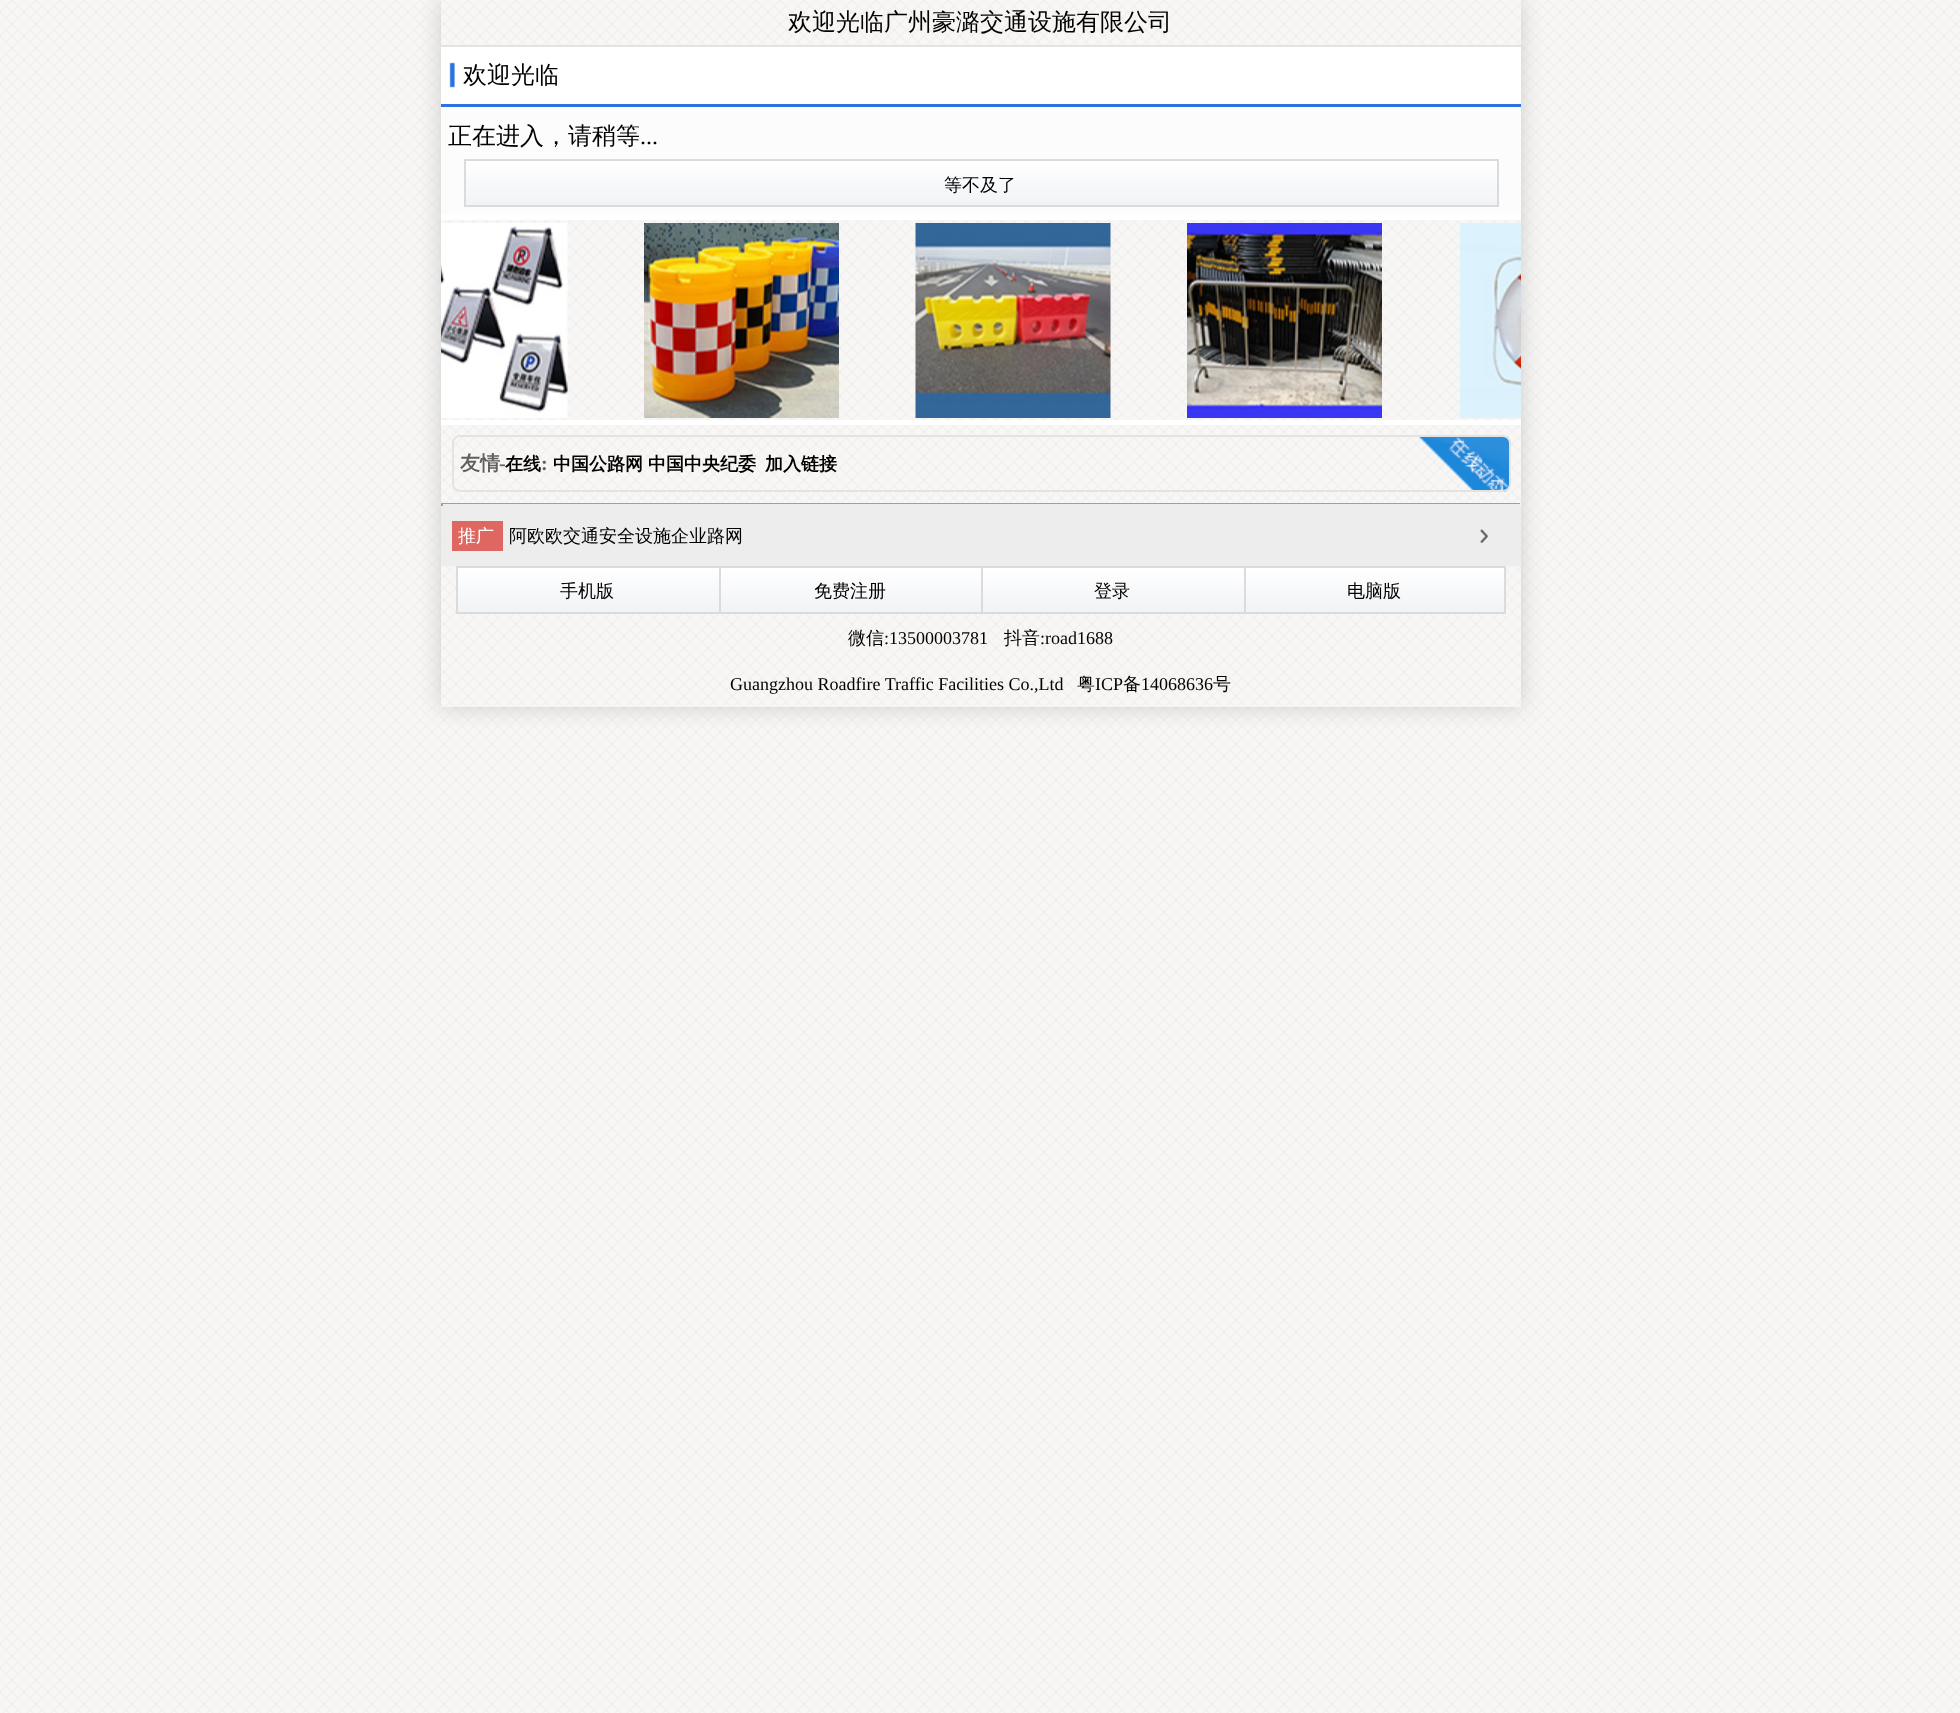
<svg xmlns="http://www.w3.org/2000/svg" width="1960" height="1713">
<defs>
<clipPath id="clip1"><path d="M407 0h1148v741h-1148zm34 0h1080v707h-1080z" clip-rule="evenodd"/></clipPath>
<linearGradient id="g1" gradientUnits="userSpaceOnUse" x1="981" y1="160" x2="981" y2="206"><stop offset="0" stop-color="#fff"/><stop offset="1" stop-color="#f1f3f6"/></linearGradient>
<clipPath id="clip2"><rect x="441" y="215" width="1080" height="210"/></clipPath>
<linearGradient id="g2" gradientUnits="userSpaceOnUse" x1="588" y1="567" x2="588" y2="612"><stop offset="0" stop-color="#fff"/><stop offset="1" stop-color="#f1f3f6"/></linearGradient>
<linearGradient id="g3" gradientUnits="userSpaceOnUse" x1="851" y1="567" x2="851" y2="612"><stop offset="0" stop-color="#fff"/><stop offset="1" stop-color="#f1f3f6"/></linearGradient>
<linearGradient id="g4" gradientUnits="userSpaceOnUse" x1="1113" y1="567" x2="1113" y2="612"><stop offset="0" stop-color="#fff"/><stop offset="1" stop-color="#f1f3f6"/></linearGradient>
<linearGradient id="g5" gradientUnits="userSpaceOnUse" x1="1375" y1="567" x2="1375" y2="612"><stop offset="0" stop-color="#fff"/><stop offset="1" stop-color="#f1f3f6"/></linearGradient>
</defs>
<rect width="100%" height="100%" fill="#fff"/>
<image x="0" y="0" width="1960" height="1713" href="media/1.png"/>
<g clip-path="url(#clip1)">
<rect x="441" width="1080" height="707" fill="#ccc" filter="blur(11px)"/>
</g>
<text x="788" y="30" style="font-family:WenQuanYi Zen Hei;font-size:24px;font-weight:500;fill:#000">欢迎光临广州豪潞交通设施有限公司</text>
<rect x="441" y="47" width="1080" height="57" fill="#fff"/>
<image x="449" y="62" width="6" height="26" href="media/2.png"/>
<rect x="441" y="45" width="1080" height="2" fill="#e3e3e3"/>
<rect x="441" y="104" width="1080" height="3" fill="#2b73df"/>
<text x="463" y="83" style="font-family:WenQuanYi Zen Hei;font-size:24px;font-weight:500;fill:#000">欢迎光临</text>
<rect x="441" y="107" width="1080" height="108" fill="#fcfcfc"/>
<text x="448" y="144" style="font-family:WenQuanYi Zen Hei;font-size:24px;font-weight:500;fill:#000">正在进入，请稍等</text>
<text x="640" y="144" style="font-family:Liberation Serif;font-size:24px;fill:#000">...</text>
<rect x="466" y="161" width="1031" height="44" fill="url(#g1)"/>
<rect x="465" y="160" width="1033" height="46" fill="none" stroke="#dbdbdb" stroke-width="2"/>
<text x="944" y="191" style="font-family:WenQuanYi Zen Hei;font-size:18px;font-weight:500;fill:#000">等不及了</text>
<g clip-path="url(#clip2)">
<rect x="367.5" y="217.5" width="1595" height="205" fill="none" stroke="#fff" stroke-width="5"/>
</g>
<image x="441" y="223" width="127" height="195" href="media/3.png"/>
<image x="644" y="223" width="195" height="195" href="media/4.png"/>
<image x="915" y="223" width="196" height="195" href="media/5.png"/>
<image x="1187" y="223" width="195" height="195" href="media/6.png"/>
<image x="1460" y="223" width="61" height="195" href="media/7.png"/>
<image x="1419" y="436" width="90" height="56" href="media/8.png"/>
<rect x="453" y="436" width="1057" height="55" rx="7" fill="none" stroke="#e3e3e3" stroke-width="2"/>
<text x="460" y="470" style="font-family:WenQuanYi Zen Hei;font-size:20px;font-weight:bold;fill:#5f5f5f">友情</text>
<text x="499" y="470" style="font-family:Liberation Serif;font-size:20px;font-weight:bold;fill:#5f5f5f">-</text>
<text x="505" y="470" style="font-family:WenQuanYi Zen Hei;font-size:18px;font-weight:bold;fill:#000">在线</text>
<text x="541" y="470" style="font-family:Liberation Serif;font-size:20px;font-weight:bold;fill:#5f5f5f">:</text>
<text x="553" y="470" style="font-family:WenQuanYi Zen Hei;font-size:18px;font-weight:bold;fill:#000">中国公路网</text>
<text x="648" y="470" style="font-family:WenQuanYi Zen Hei;font-size:18px;font-weight:bold;fill:#000">中国中央纪委</text>
<text x="765" y="470" style="font-family:WenQuanYi Zen Hei;font-size:18px;font-weight:bold;fill:#000">加入链接</text>
<rect x="441" y="503" width="1080" height="1" fill="#9f9f9f"/>
<rect x="1520" y="503" width="2" height="3" fill="#eee"/>
<rect x="441" y="504" width="1080" height="2" fill="#eee"/>
<rect x="441" y="503" width="2" height="3" fill="#9f9f9f"/>
<rect x="441" y="506" width="1080" height="60" fill="#ededed"/>
<image x="1480" y="529" width="8" height="14" href="media/9.png"/>
<rect x="452" y="521" width="51" height="30" fill="#de6761"/>
<text x="458" y="542" style="font-family:WenQuanYi Zen Hei;font-size:18px;font-weight:500;fill:#fff">推广</text>
<text x="509" y="542" style="font-family:WenQuanYi Zen Hei;font-size:18px;font-weight:500;fill:#000">阿欧欧交通安全设施企业路网</text>
<rect x="458" y="568" width="261" height="44" fill="url(#g2)"/>
<rect x="456" y="566" width="788" height="2" fill="#dbdbdb"/>
<rect x="456" y="612" width="788" height="2" fill="#dbdbdb"/>
<rect x="456" y="566" width="2" height="48" fill="#dbdbdb"/>
<text x="560" y="597" style="font-family:WenQuanYi Zen Hei;font-size:18px;font-weight:500;fill:#000">手机版</text>
<rect x="721" y="568" width="260" height="44" fill="url(#g3)"/>
<rect x="719" y="566" width="2" height="48" fill="#dbdbdb"/>
<text x="814" y="597" style="font-family:WenQuanYi Zen Hei;font-size:18px;font-weight:500;fill:#000">免费注册</text>
<rect x="983" y="568" width="261" height="44" fill="url(#g4)"/>
<rect x="981" y="566" width="2" height="48" fill="#dbdbdb"/>
<text x="1094" y="597" style="font-family:WenQuanYi Zen Hei;font-size:18px;font-weight:500;fill:#000">登录</text>
<rect x="1246" y="568" width="258" height="44" fill="url(#g5)"/>
<rect x="1245" y="567" width="260" height="46" fill="none" stroke="#dbdbdb" stroke-width="2"/>
<text x="1347" y="597" style="font-family:WenQuanYi Zen Hei;font-size:18px;font-weight:500;fill:#000">电脑版</text>
<text x="848" y="644" style="font-family:WenQuanYi Zen Hei;font-size:18px;font-weight:500;fill:#000">微信</text>
<text x="884" y="644" style="font-family:Liberation Serif;font-size:18px;fill:#000">:13500003781</text>
<text x="1004" y="644" style="font-family:WenQuanYi Zen Hei;font-size:18px;font-weight:500;fill:#000">抖音</text>
<text x="1040" y="644" style="font-family:Liberation Serif;font-size:18px;fill:#000">:road1688</text>
<text x="730" y="690" style="font-family:Liberation Serif;font-size:18px;fill:#000">Guangzhou Roadfire Traffic Facilities Co.,Ltd</text>
<text x="1077" y="690" style="font-family:WenQuanYi Zen Hei;font-size:18px;font-weight:500;fill:#000">粤</text>
<text x="1095" y="690" style="font-family:Liberation Serif;font-size:18px;fill:#000">ICP</text>
<text x="1123" y="690" style="font-family:WenQuanYi Zen Hei;font-size:18px;font-weight:500;fill:#000">备</text>
<text x="1141" y="690" style="font-family:Liberation Serif;font-size:18px;fill:#000">14068636</text>
<text x="1213" y="690" style="font-family:WenQuanYi Zen Hei;font-size:18px;font-weight:500;fill:#000">号</text>
</svg>
